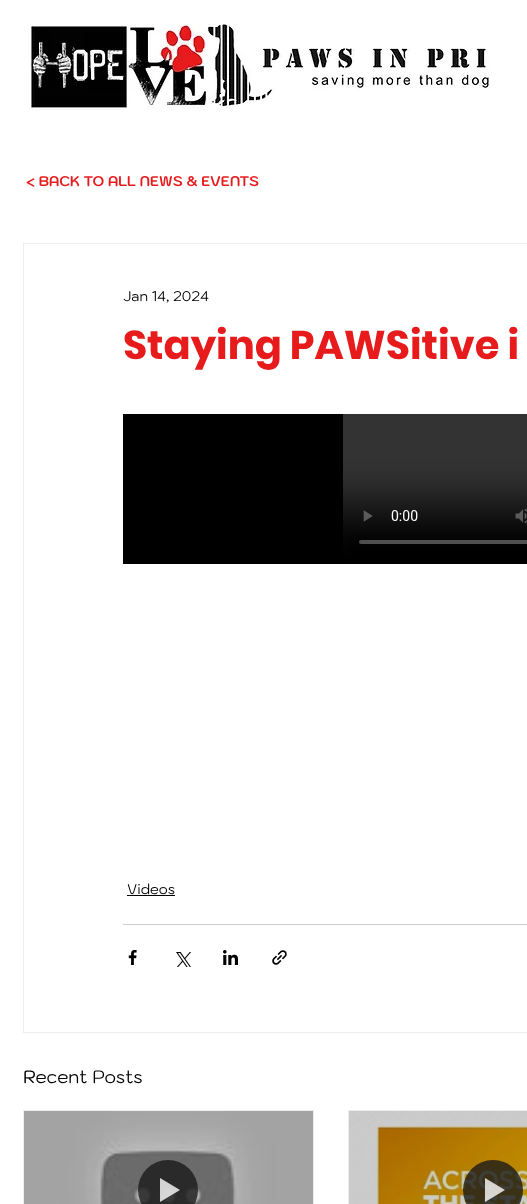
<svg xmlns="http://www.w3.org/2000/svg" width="527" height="1204">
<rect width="100%" height="100%" fill="#fff"/>
<image x="31" y="24" width="459" height="86" href="media/1.png"/>
<text x="26" y="186" style="font-family:Kodchasan;font-size:14px;font-weight:bold;fill:#e71b1c">&lt; BACK TO ALL NEWS &amp; EVENTS</text>
<rect x="23.5" y="243.5" width="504" height="789" fill="none" stroke="#eeecec"/>
<text x="123" y="301" style="font-family:Kodchasan;font-size:14px;fill:#000">Jan 14, 2024</text>
<text x="123" y="359" style="font-family:Poppins;font-size:40px;font-weight:bold;fill:#e71b1c">Staying PAWSitive i</text>
<image x="123" y="414" width="404" height="150" href="media/2.png"/>
<text x="127" y="894" style="font-family:Kodchasan;font-size:14px;fill:#000">Videos</text>
<rect x="127" y="895" width="48" height="1" fill="#000"/>
<rect x="123" y="924" width="404" height="1" fill="#ccc"/>
<image x="128" y="950" width="9" height="15" href="media/3.png"/>
<image x="176" y="952" width="15" height="15" href="media/4.png"/>
<image x="223" y="950" width="15" height="15" href="media/5.png"/>
<image x="272" y="950" width="15" height="15" href="media/6.png"/>
<text x="23" y="1083" style="font-family:Kodchasan;font-size:18px;fill:#000">Recent Posts</text>
<rect x="23.5" y="1110.5" width="290" height="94" fill="none" stroke="#eeecec"/>
<image x="24" y="1111" width="289" height="93" href="media/7.png"/>
<circle cx="168" cy="1190" r="30" fill="#1a1a1acc"/>
<path d="M160 1178v24l20-12z" fill="#ffffffcc"/>
<rect x="348.5" y="1110.5" width="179" height="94" fill="none" stroke="#eeecec"/>
<image x="349" y="1111" width="178" height="93" href="media/8.png"/>
<circle cx="493" cy="1190" r="30" fill="#1a1a1acc"/>
<path d="M485 1178v24l20-12z" fill="#ffffffcc"/>
</svg>
